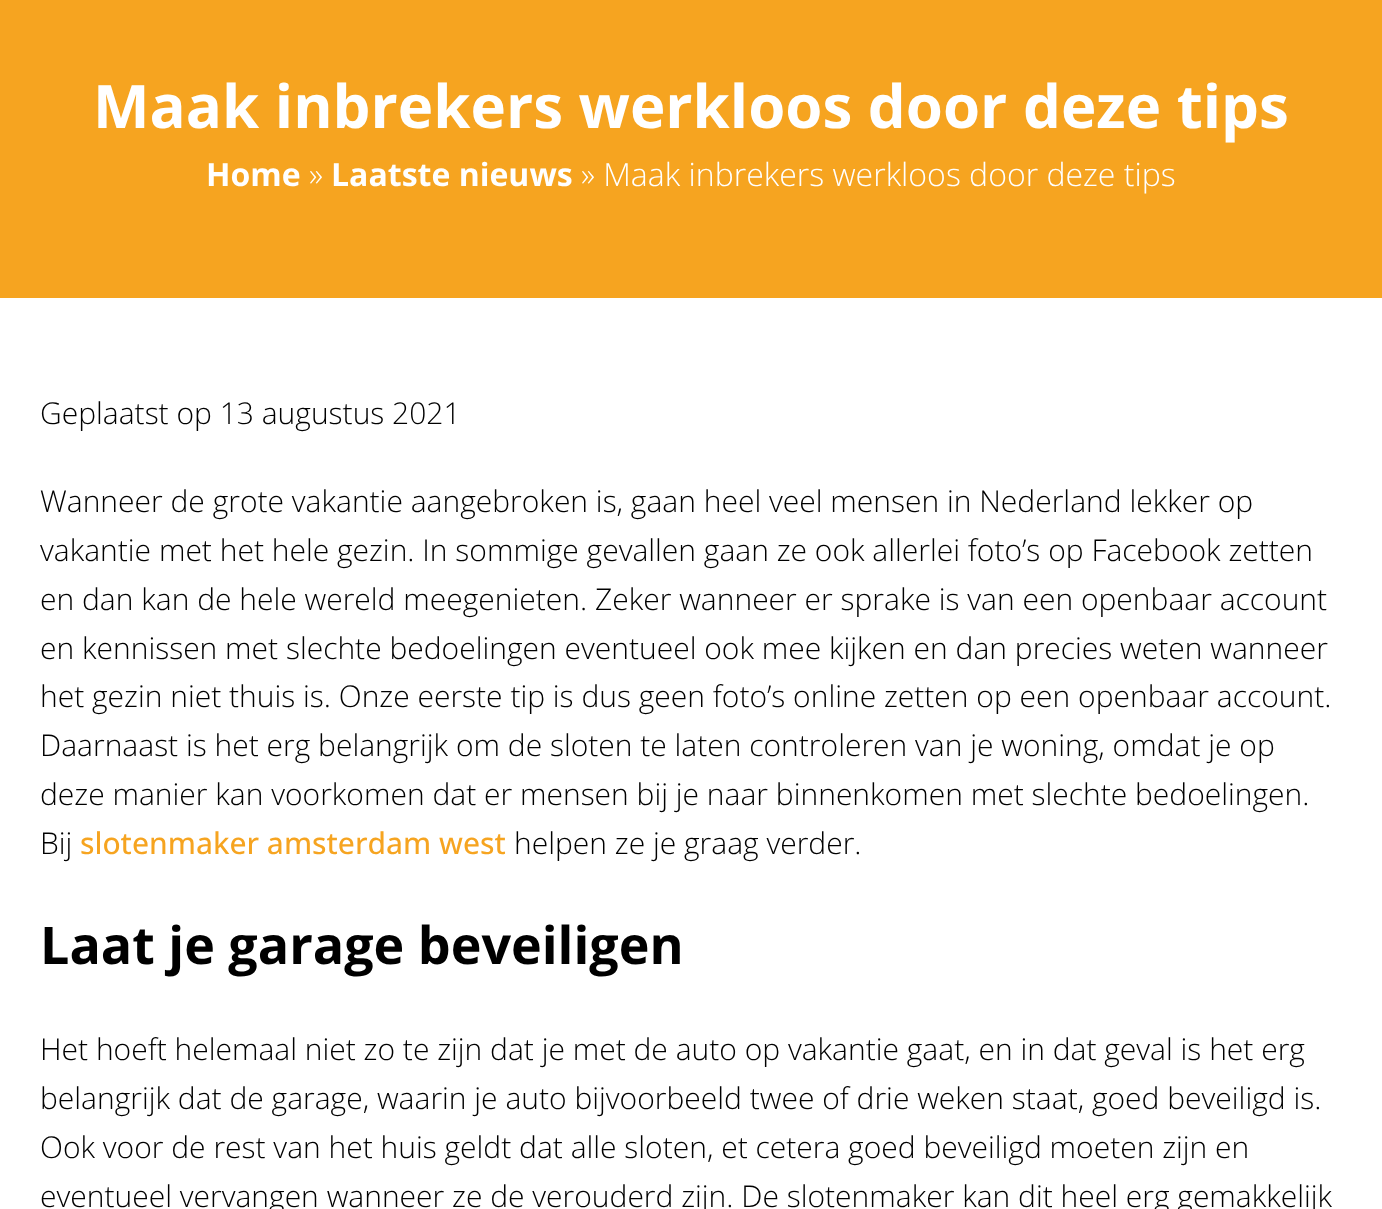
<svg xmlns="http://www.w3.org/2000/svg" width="1382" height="1209">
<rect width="100%" height="100%" fill="#fff"/>
<rect width="1382" height="298" fill="#f6a420"/>
<text x="93" y="128" style="font-family:Open Sans;font-size:60px;font-weight:bold;fill:#fff">Maak inbrekers werkloos door deze tips</text>
<text x="206" y="186" style="font-family:Open Sans;font-size:32px;font-weight:bold;fill:#fff">Home</text>
<text x="309" y="186" style="font-family:Open Sans;font-size:32px;font-weight:300;fill:#fff">»</text>
<text x="331" y="186" style="font-family:Open Sans;font-size:32px;font-weight:bold;fill:#fff">Laatste nieuws</text>
<text x="581" y="186" style="font-family:Open Sans;font-size:32px;font-weight:300;fill:#fff">» Maak inbrekers werkloos door deze tips</text>
<text x="40" y="424" style="font-family:Open Sans;font-size:30px;font-weight:300;fill:#000">Geplaatst op 13 augustus 2021</text>
<text x="40" y="512" style="font-family:Open Sans;font-size:30px;font-weight:300;fill:#000">Wanneer de grote vakantie aangebroken is, gaan heel veel mensen in Nederland lekker op</text>
<text x="40" y="561" style="font-family:Open Sans;font-size:30px;font-weight:300;fill:#000">vakantie met het hele gezin. In sommige gevallen gaan ze ook allerlei foto’s op Facebook zetten</text>
<text x="40" y="610" style="font-family:Open Sans;font-size:30px;font-weight:300;fill:#000">en dan kan de hele wereld meegenieten. Zeker wanneer er sprake is van een openbaar account</text>
<text x="40" y="659" style="font-family:Open Sans;font-size:30px;font-weight:300;fill:#000">en kennissen met slechte bedoelingen eventueel ook mee kijken en dan precies weten wanneer</text>
<text x="40" y="707" style="font-family:Open Sans;font-size:30px;font-weight:300;fill:#000">het gezin niet thuis is. Onze eerste tip is dus geen foto’s online zetten op een openbaar account.</text>
<text x="40" y="756" style="font-family:Open Sans;font-size:30px;font-weight:300;fill:#000">Daarnaast is het erg belangrijk om de sloten te laten controleren van je woning, omdat je op</text>
<text x="40" y="805" style="font-family:Open Sans;font-size:30px;font-weight:300;fill:#000">deze manier kan voorkomen dat er mensen bij je naar binnenkomen met slechte bedoelingen.</text>
<text x="40" y="854" style="font-family:Open Sans;font-size:30px;font-weight:300;fill:#000">Bij</text>
<text x="80" y="854" style="font-family:Open Sans;font-size:30px;font-weight:500;fill:#f6a420">slotenmaker amsterdam west</text>
<text x="514" y="854" style="font-family:Open Sans;font-size:30px;font-weight:300;fill:#000">helpen ze je graag verder.</text>
<text x="40" y="964" style="font-family:Open Sans;font-size:52px;font-weight:bold;fill:#000">Laat je garage beveiligen</text>
<text x="40" y="1060" style="font-family:Open Sans;font-size:30px;font-weight:300;fill:#000">Het hoeft helemaal niet zo te zijn dat je met de auto op vakantie gaat, en in dat geval is het erg</text>
<text x="40" y="1109" style="font-family:Open Sans;font-size:30px;font-weight:300;fill:#000">belangrijk dat de garage, waarin je auto bijvoorbeeld twee of drie weken staat, goed beveiligd is.</text>
<text x="40" y="1158" style="font-family:Open Sans;font-size:30px;font-weight:300;fill:#000">Ook voor de rest van het huis geldt dat alle sloten, et cetera goed beveiligd moeten zijn en</text>
<text x="40" y="1207" style="font-family:Open Sans;font-size:30px;font-weight:300;fill:#000">eventueel vervangen wanneer ze de verouderd zijn. De slotenmaker kan dit heel erg gemakkelijk</text>
</svg>
